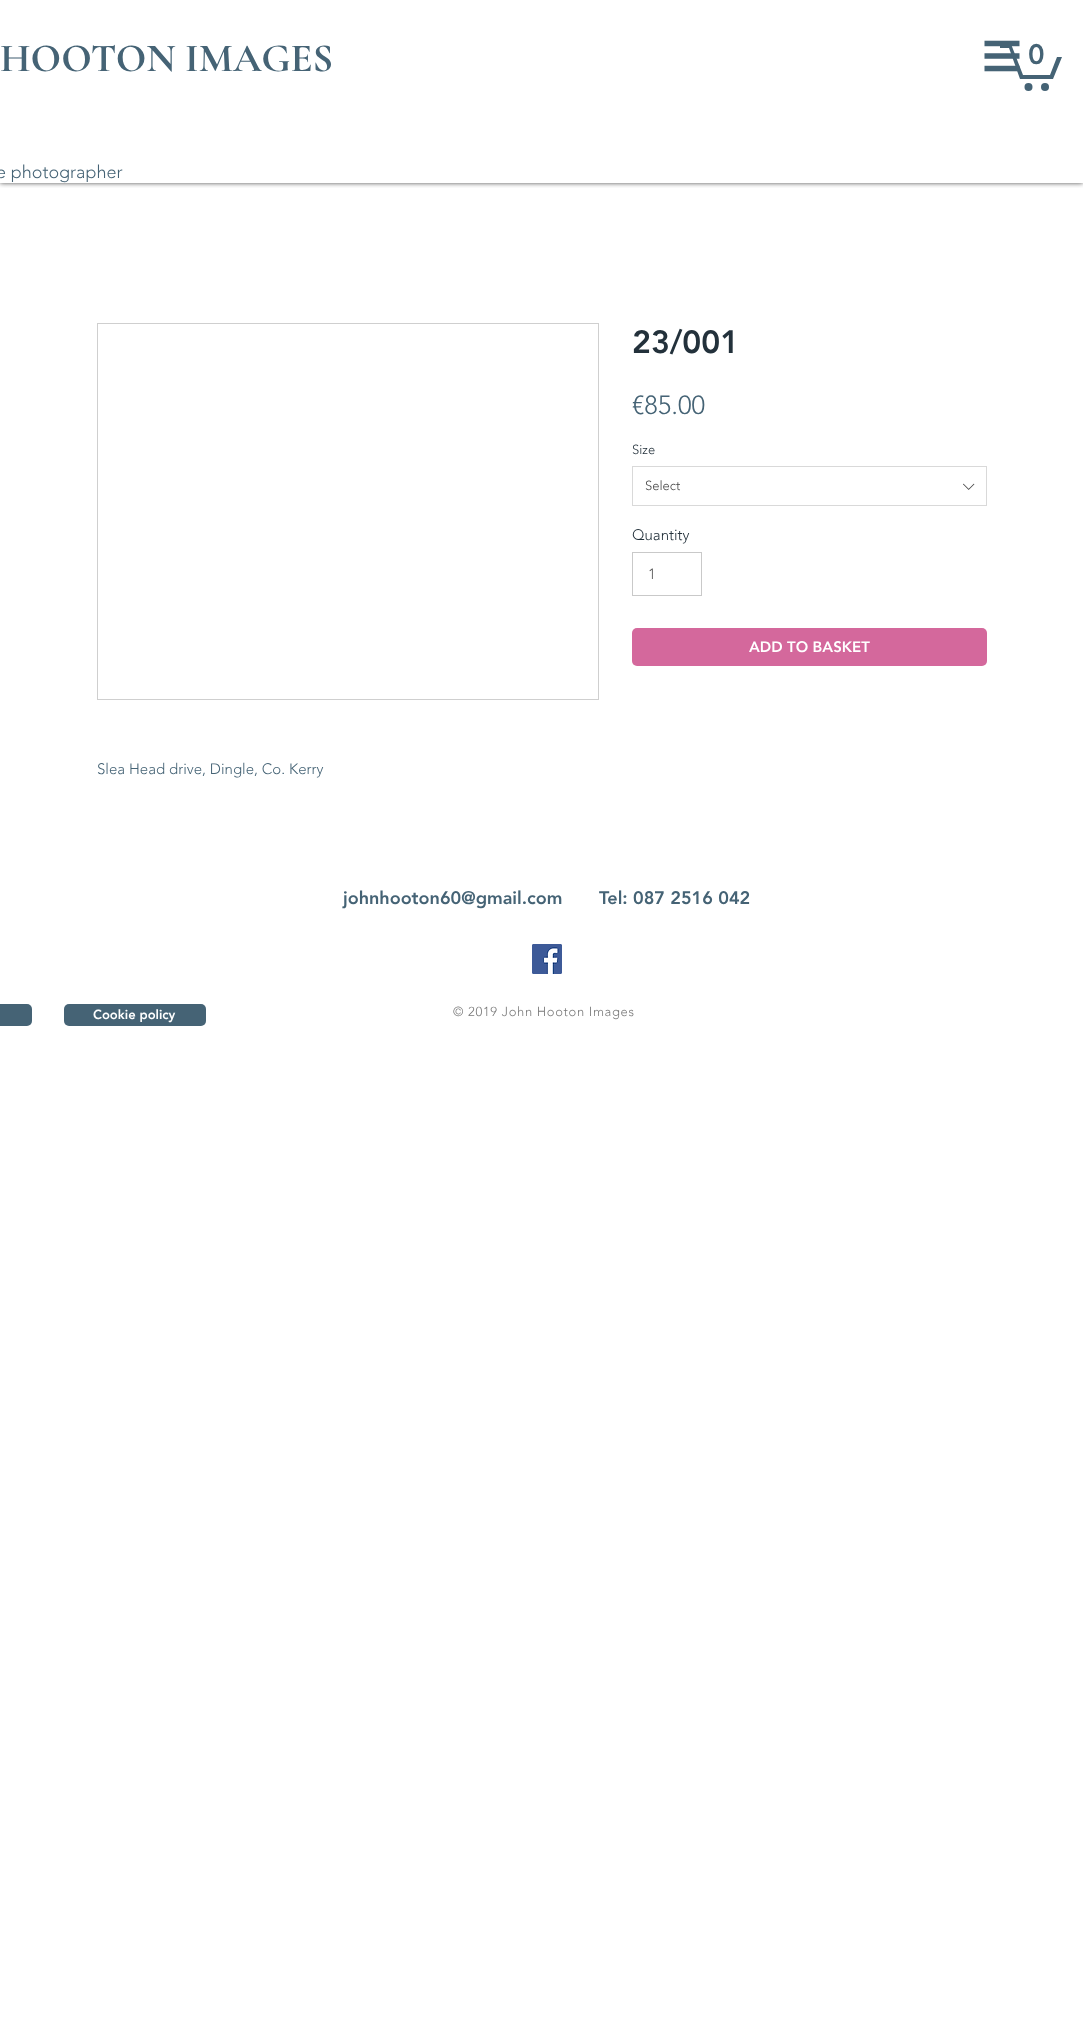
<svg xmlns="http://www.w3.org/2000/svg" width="1083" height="2037">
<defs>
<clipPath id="clip1"><rect x="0" y="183" width="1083" height="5"/></clipPath>
</defs>
<rect width="100%" height="100%" fill="#fff"/>
<g clip-path="url(#clip1)">
<rect width="1083" height="183" fill="#000000b3" filter="blur(2.5px)"/>
</g>
<path d="M1062 57l-9 22h-33l-11-31h-9v-4h11l12 31h27l7-18" fill="#456375"/>
<image x="984" y="40" width="36" height="32" href="media/1.png"/>
<text x="0" y="71" style="font-family:Cormorant Garamond;font-size:40px;font-weight:bold;fill:#456375">HOOTON IMAGES</text>
<circle cx="1045" cy="87" r="4" fill="#456375"/>
<circle cx="1028.5" cy="87" r="4" fill="#456375"/>
<text x="1028" y="64" style="font-family:'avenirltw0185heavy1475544';font-size:28px;font-weight:900;fill:#456375">0</text>
<text x="-4" y="178" style="font-family:'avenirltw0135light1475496';font-size:18px;font-weight:300;fill:#456375">e photographer</text>
<text x="632" y="353" style="font-family:'avenirltw0185heavy1475544';font-size:32px;font-weight:900;fill:#23313b">23/001</text>
<text x="632" y="414" style="font-family:'avenirltw0135light1475496';font-size:26px;font-weight:300;fill:#456375">€85.00</text>
<text x="632" y="454" style="font-family:'avenirltw0135light1475496';font-size:13px;font-weight:300;fill:#23313b">Size</text>
<rect x="632.5" y="466.5" width="354" height="39" fill="none" stroke="#d9d9d9"/>
<text x="645" y="490" style="font-family:'avenirltw0135light1475496';font-size:13px;font-weight:300;fill:#444">Select</text>
<image x="963" y="483" width="12" height="7" href="media/2.png"/>
<text x="632" y="540" style="font-family:'avenirltw0135light1475496';font-size:15px;font-weight:300;fill:#23313b">Quantity</text>
<rect x="632.5" y="552.5" width="69" height="43" fill="none" stroke="#c9c9c9"/>
<text x="648" y="579" style="font-family:'avenirltw0135light1475496';font-size:15px;font-weight:300;fill:#575757">1</text>
<rect x="632" y="628" width="355" height="38" rx="5" fill="#d4689c"/>
<text x="749" y="652" style="font-family:'avenirltw0185heavy1475544';font-size:15px;font-weight:900;fill:#fff">ADD TO BASKET</text>
<rect x="97.5" y="323.5" width="501" height="376" fill="none" stroke="#cfcfcf"/>
<text x="97" y="774" style="font-family:'avenirltw0135light1475496';font-size:15px;font-weight:300;fill:#456375">Slea Head drive, Dingle, Co. Kerry</text>
<text x="343" y="904" style="font-family:'avenirltw0185heavy1475544';font-size:18px;font-weight:900;fill:#456375">johnhooton60@gmail.com</text>
<text x="599" y="904" style="font-family:'avenirltw0185heavy1475544';font-size:18px;font-weight:900;fill:#456375">Tel: 087 2516 042</text>
<image x="532" y="944" width="30" height="30" href="media/3.png"/>
<rect x="-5" y="1004" width="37" height="22" rx="5" fill="#456375"/>
<rect x="64" y="1004" width="142" height="22" rx="5" fill="#456375"/>
<text x="93" y="1019" style="font-family:'avenirltw0185heavy1475544';font-size:13px;font-weight:900;fill:#fff">Cookie policy</text>
<text x="453" y="1016" style="font-family:'avenirltw0135light1475496';font-size:13px;font-weight:300;letter-spacing:0.65px;fill:#797979">© 2019 John Hooton Images</text>
</svg>
